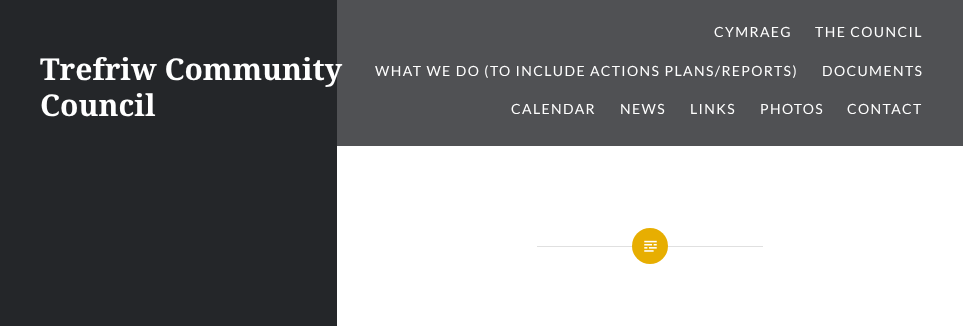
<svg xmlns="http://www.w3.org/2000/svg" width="963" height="326">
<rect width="100%" height="100%" fill="#242629"/>
<rect x="337" y="146" width="626" height="180" fill="#fff"/>
<rect x="337" width="626" height="146" fill="#505154"/>
<rect x="537" y="246" width="226" height="1" fill="#e0e0e0"/>
<circle cx="650" cy="246" r="18" fill="#e7ae01"/>
<image x="644" y="240" width="13" height="12" href="media/1.png"/>
<text x="40" y="80" style="font-family:Noto Serif;font-size:30px;font-weight:bold;fill:#fff">Trefriw Community</text>
<text x="40" y="116" style="font-family:Noto Serif;font-size:30px;font-weight:bold;fill:#fff">Council</text>
<text x="714" y="37" style="font-family:Lato;font-size:14px;letter-spacing:1.4px;fill:#fff">CYMRAEG</text>
<text x="815" y="37" style="font-family:Lato;font-size:14px;letter-spacing:1.4px;fill:#fff">THE COUNCIL</text>
<text x="375" y="76" style="font-family:Lato;font-size:14px;letter-spacing:1.4px;fill:#fff">WHAT WE DO (TO INCLUDE ACTIONS PLANS/REPORTS)</text>
<text x="822" y="76" style="font-family:Lato;font-size:14px;letter-spacing:1.4px;fill:#fff">DOCUMENTS</text>
<text x="511" y="114" style="font-family:Lato;font-size:14px;letter-spacing:1.4px;fill:#fff">CALENDAR</text>
<text x="620" y="114" style="font-family:Lato;font-size:14px;letter-spacing:1.4px;fill:#fff">NEWS</text>
<text x="690" y="114" style="font-family:Lato;font-size:14px;letter-spacing:1.4px;fill:#fff">LINKS</text>
<text x="760" y="114" style="font-family:Lato;font-size:14px;letter-spacing:1.4px;fill:#fff">PHOTOS</text>
<text x="847" y="114" style="font-family:Lato;font-size:14px;letter-spacing:1.4px;fill:#fff">CONTACT</text>
</svg>
